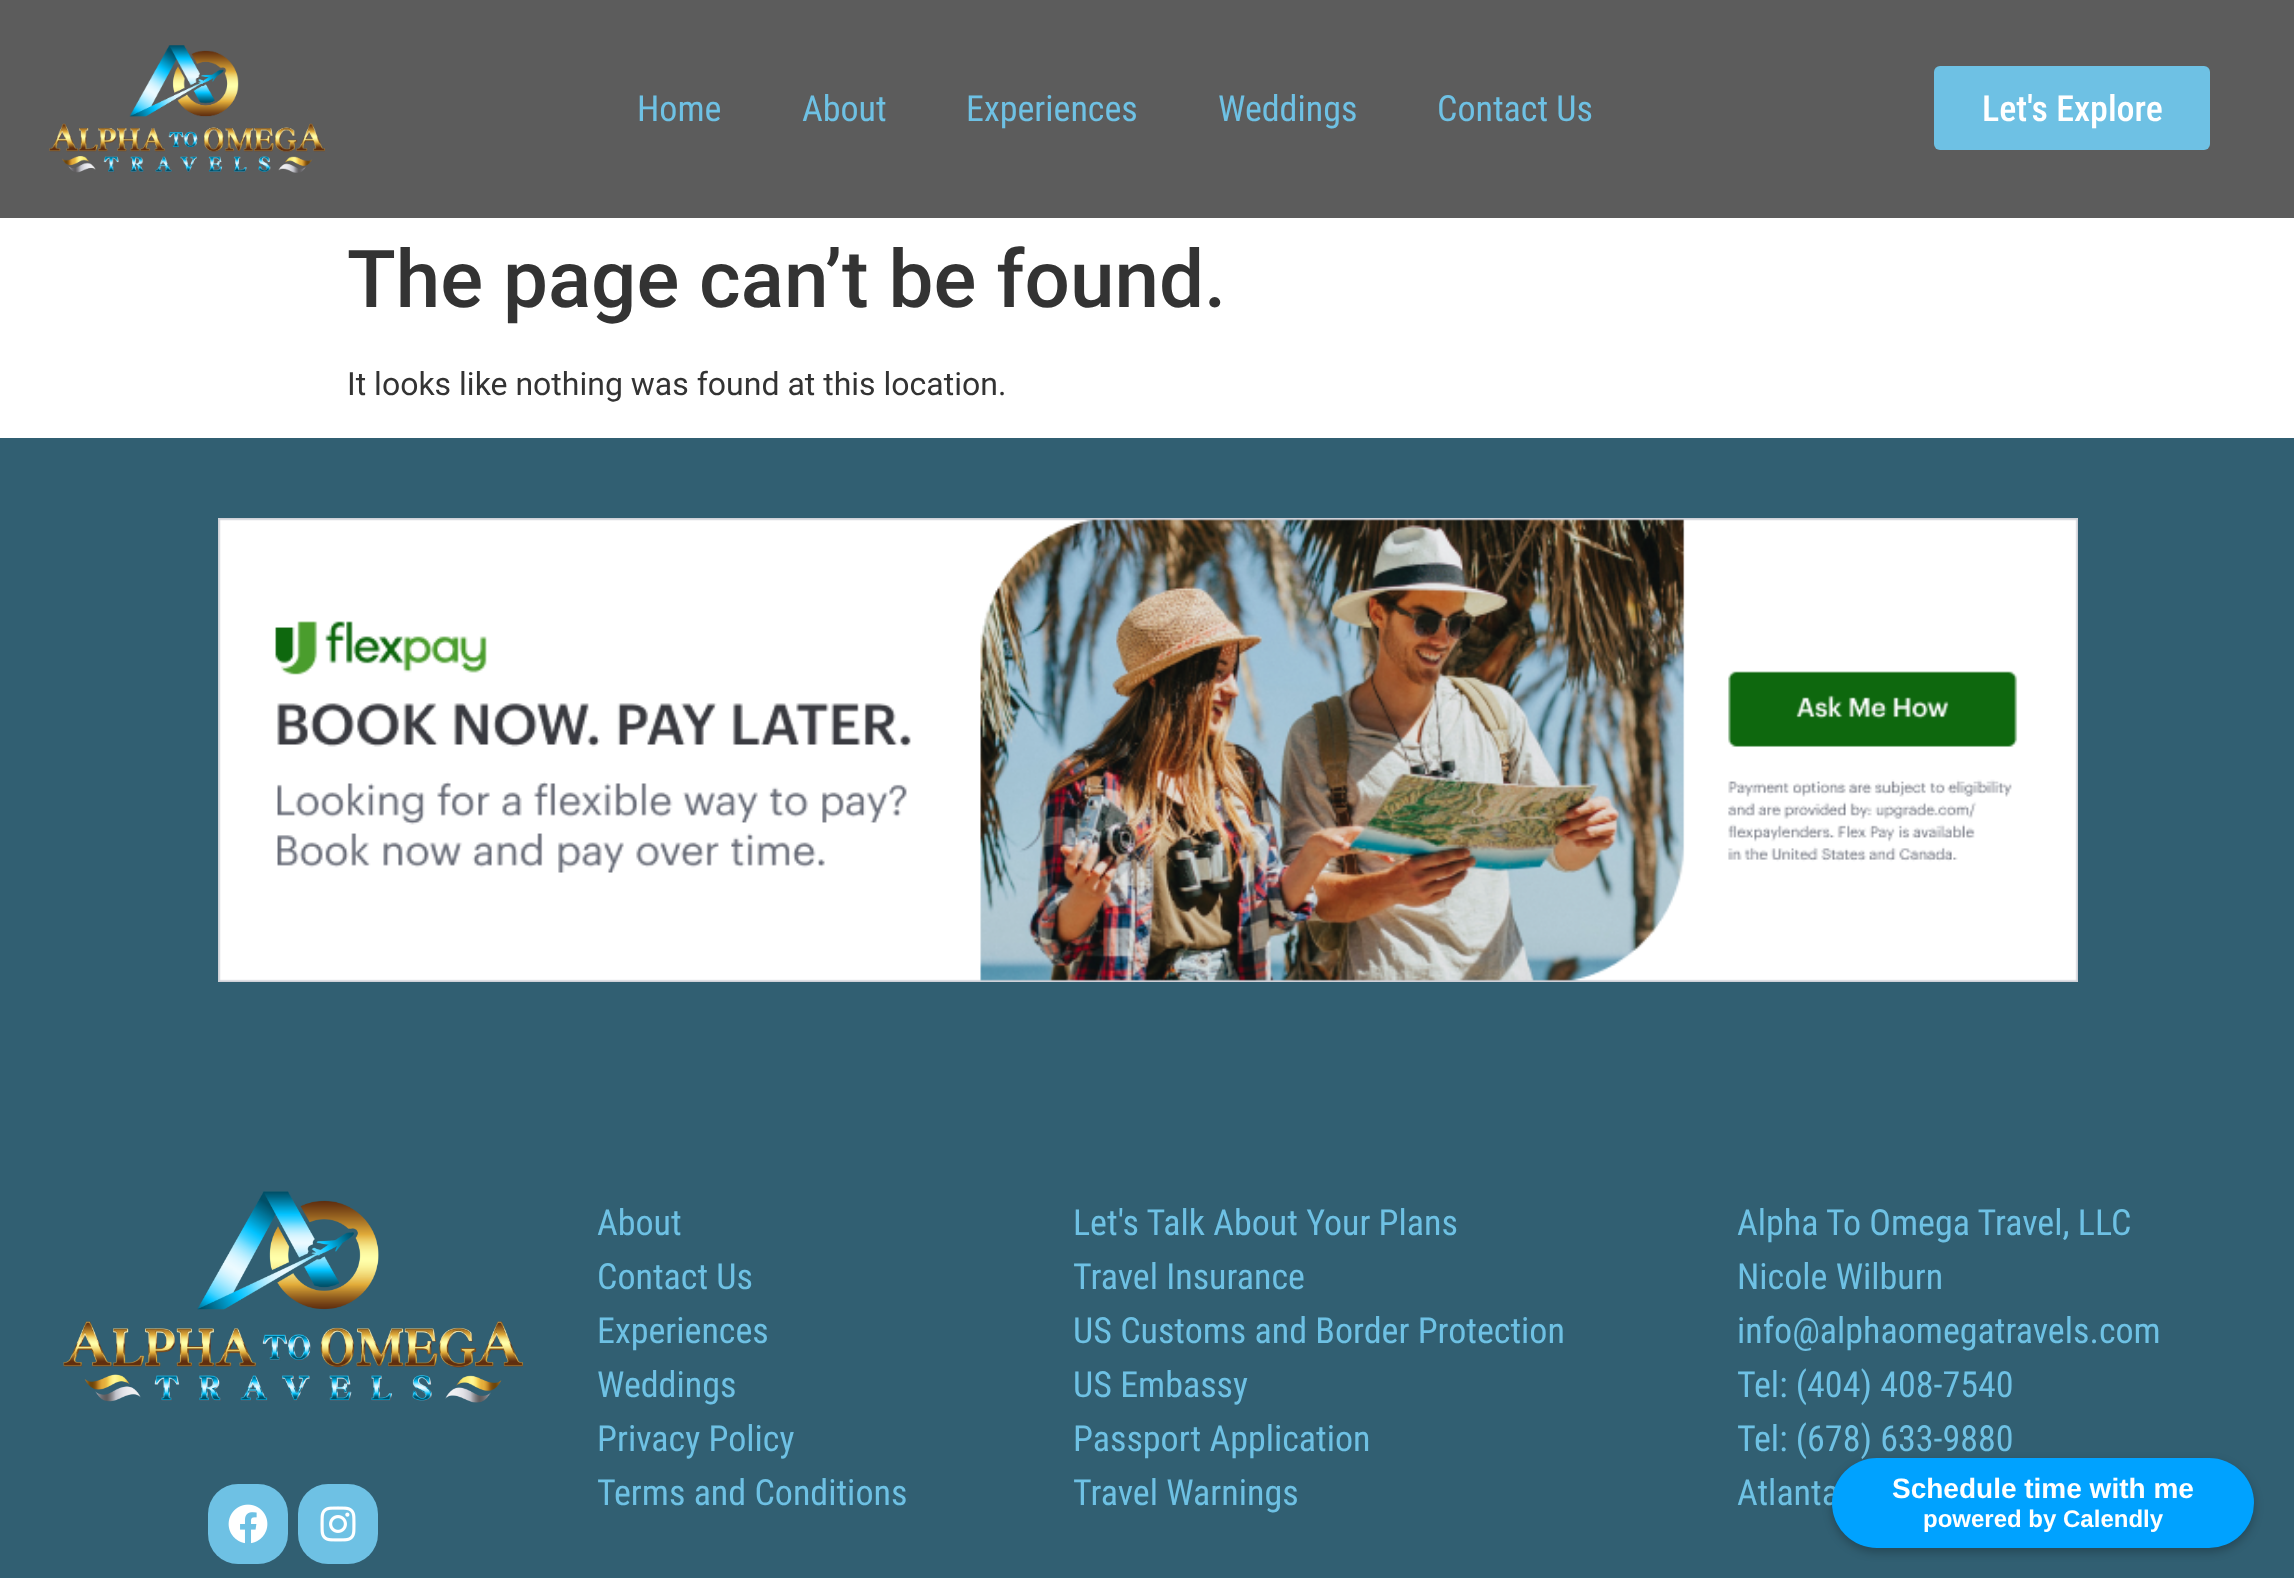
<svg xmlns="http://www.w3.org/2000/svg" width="2294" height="1578">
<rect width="100%" height="100%" fill="#fff"/>
<rect width="2294" height="218" fill="#5c5c5c"/>
<image x="49" y="45" width="276" height="128" href="media/1.png"/>
<text x="637" y="121" style="font-family:Roboto Condensed;font-size:36px;fill:#6ec1e4">Home</text>
<text x="802" y="121" style="font-family:Roboto Condensed;font-size:36px;fill:#6ec1e4">About</text>
<text x="966" y="121" style="font-family:Roboto Condensed;font-size:36px;fill:#6ec1e4">Experiences</text>
<text x="1218" y="121" style="font-family:Roboto Condensed;font-size:36px;fill:#6ec1e4">Weddings</text>
<text x="1437" y="121" style="font-family:Roboto Condensed;font-size:36px;fill:#6ec1e4">Contact Us</text>
<rect x="1934" y="66" width="276" height="84" rx="6" fill="#6ec1e4"/>
<text x="1982" y="121" style="font-family:Roboto Condensed;font-size:36px;font-weight:500;fill:#fff">Let's Explore</text>
<text x="347" y="307" style="font-family:Roboto;font-size:80px;font-weight:500;fill:#333">The page can’t be found.</text>
<text x="347" y="395" style="font-family:Roboto;font-size:32px;fill:#333">It looks like nothing was found at this location.</text>
<rect y="438" width="2294" height="1140" fill="#315f72"/>
<image x="218" y="518" width="1860" height="464" href="media/2.png"/>
<image x="63" y="1191" width="460" height="212" href="media/3.png"/>
<rect x="208" y="1484" width="80" height="80" rx="30" fill="#6ec1e4"/>
<image x="228" y="1504" width="40" height="40" href="media/4.png"/>
<rect x="298" y="1484" width="80" height="80" rx="30" fill="#6ec1e4"/>
<image x="320" y="1506" width="36" height="36" href="media/5.png"/>
<text x="597" y="1235" style="font-family:Roboto Condensed;font-size:36px;fill:#6ec1e4">About</text>
<text x="597" y="1289" style="font-family:Roboto Condensed;font-size:36px;fill:#6ec1e4">Contact Us</text>
<text x="597" y="1343" style="font-family:Roboto Condensed;font-size:36px;fill:#6ec1e4">Experiences</text>
<text x="597" y="1397" style="font-family:Roboto Condensed;font-size:36px;fill:#6ec1e4">Weddings</text>
<text x="597" y="1451" style="font-family:Roboto Condensed;font-size:36px;fill:#6ec1e4">Privacy Policy</text>
<text x="597" y="1505" style="font-family:Roboto Condensed;font-size:36px;fill:#6ec1e4">Terms and Conditions</text>
<text x="1073" y="1235" style="font-family:Roboto Condensed;font-size:36px;fill:#6ec1e4">Let's Talk About Your Plans</text>
<text x="1073" y="1289" style="font-family:Roboto Condensed;font-size:36px;fill:#6ec1e4">Travel Insurance</text>
<text x="1073" y="1343" style="font-family:Roboto Condensed;font-size:36px;fill:#6ec1e4">US Customs and Border Protection</text>
<text x="1073" y="1397" style="font-family:Roboto Condensed;font-size:36px;fill:#6ec1e4">US Embassy</text>
<text x="1073" y="1451" style="font-family:Roboto Condensed;font-size:36px;fill:#6ec1e4">Passport Application</text>
<text x="1073" y="1505" style="font-family:Roboto Condensed;font-size:36px;fill:#6ec1e4">Travel Warnings</text>
<text x="1737" y="1235" style="font-family:Roboto Condensed;font-size:36px;fill:#6ec1e4">Alpha To Omega Travel, LLC</text>
<text x="1737" y="1289" style="font-family:Roboto Condensed;font-size:36px;fill:#6ec1e4">Nicole Wilburn</text>
<text x="1737" y="1343" style="font-family:Roboto Condensed;font-size:36px;fill:#6ec1e4">info@alphaomegatravels.com</text>
<text x="1737" y="1397" style="font-family:Roboto Condensed;font-size:36px;fill:#6ec1e4">Tel: (404) 408-7540</text>
<text x="1737" y="1451" style="font-family:Roboto Condensed;font-size:36px;fill:#6ec1e4">Tel: (678) 633-9880</text>
<text x="1737" y="1505" style="font-family:Roboto Condensed;font-size:36px;fill:#6ec1e4">Atlanta</text>
<rect x="1832" y="1462" width="422" height="90" rx="45" fill="#00000040" filter="blur(5px)"/>
<rect x="1832" y="1458" width="422" height="90" rx="45" fill="#00a2ff"/>
<text x="1892" y="1498" style="font-family:Liberation Sans;font-size:28px;font-weight:bold;fill:#fff">Schedule time with me</text>
<text x="1923" y="1527" style="font-family:Liberation Sans;font-size:24px;font-weight:bold;fill:#fff">powered by Calendly</text>
</svg>
